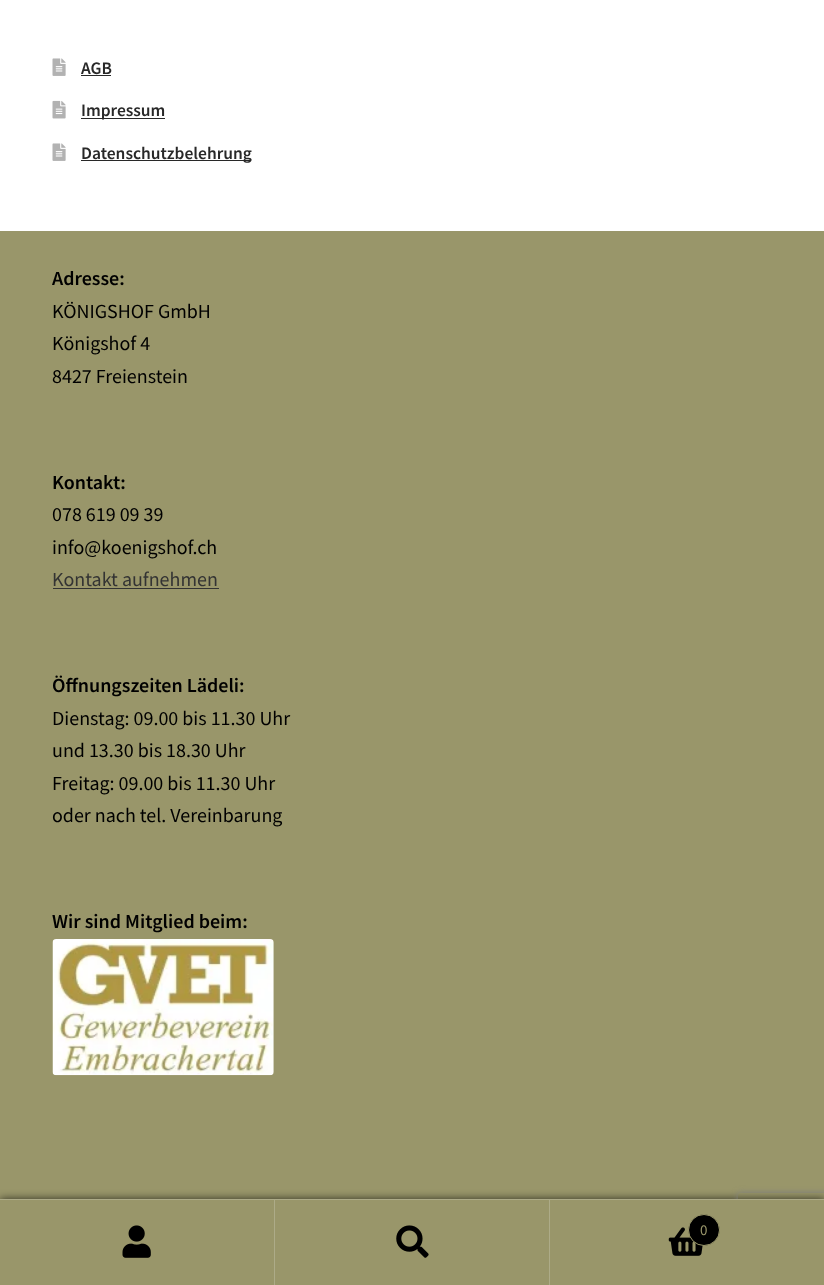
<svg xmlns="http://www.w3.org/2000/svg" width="824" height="1285">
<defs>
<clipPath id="clip1"><path d="M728 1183h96v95h-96zm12.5 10h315c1.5 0 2.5 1 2.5 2.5v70c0 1.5-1 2.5-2.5 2.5h-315c-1.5 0-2.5-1-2.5-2.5v-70c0-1.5 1-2.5 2.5-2.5z" clip-rule="evenodd"/></clipPath>
</defs>
<rect width="100%" height="100%" fill="#fff"/>
<image x="52" y="58" width="14" height="18" href="media/1.png"/>
<text x="81" y="74" style="font-family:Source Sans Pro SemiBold;font-size:17.5px;font-weight:600;fill:#282828">AGB</text>
<rect x="81" y="75" width="30" height="1" fill="#282828"/>
<image x="52" y="100" width="14" height="19" href="media/2.png"/>
<rect x="81" y="118" width="84" height="1" fill="#282828"/>
<text x="81" y="116" style="font-family:Source Sans Pro SemiBold;font-size:17.5px;font-weight:600;fill:#282828">Impressum</text>
<image x="52" y="143" width="14" height="18" href="media/1.png"/>
<rect x="81" y="160" width="170" height="1" fill="#282828"/>
<text x="81" y="159" style="font-family:Source Sans Pro SemiBold;font-size:17.5px;font-weight:600;fill:#282828">Datenschutzbelehrung</text>
<rect y="231" width="824" height="968" fill="#99966a"/>
<text x="52" y="285" style="font-family:Source Sans Pro SemiBold;font-size:20px;font-weight:600;fill:#000">Adresse:</text>
<text x="52" y="318" style="font-family:Source Sans Pro;font-size:20px;fill:#000">KÖNIGSHOF GmbH</text>
<text x="52" y="350" style="font-family:Source Sans Pro;font-size:20px;fill:#000">Königshof 4</text>
<text x="52" y="383" style="font-family:Source Sans Pro;font-size:20px;fill:#000">8427 Freienstein</text>
<text x="52" y="489" style="font-family:Source Sans Pro SemiBold;font-size:20px;font-weight:600;fill:#000">Kontakt:</text>
<text x="52" y="521" style="font-family:Source Sans Pro;font-size:20px;fill:#000">078 619 09 39</text>
<text x="52" y="554" style="font-family:Source Sans Pro;font-size:20px;fill:#000">info@koenigshof.ch</text>
<text x="52" y="586" style="font-family:Source Sans Pro;font-size:20px;fill:#333">Kontakt aufnehmen</text>
<rect x="53" y="588" width="166" height="1" fill="#333"/>
<text x="52" y="692" style="font-family:Source Sans Pro SemiBold;font-size:20px;font-weight:600;fill:#000">Öffnungszeiten Lädeli:</text>
<text x="52" y="725" style="font-family:Source Sans Pro;font-size:20px;fill:#000">Dienstag: 09.00 bis 11.30 Uhr</text>
<text x="52" y="757" style="font-family:Source Sans Pro;font-size:20px;fill:#000">und 13.30 bis 18.30 Uhr</text>
<text x="52" y="790" style="font-family:Source Sans Pro;font-size:20px;fill:#000">Freitag: 09.00 bis 11.30 Uhr</text>
<text x="52" y="822" style="font-family:Source Sans Pro;font-size:20px;fill:#000">oder nach tel. Vereinbarung</text>
<text x="52" y="928" style="font-family:Source Sans Pro SemiBold;font-size:20px;font-weight:600;fill:#000">Wir sind Mitglied beim:</text>
<image x="52" y="939" width="222" height="137" href="media/3.png"/>
<rect y="1199" width="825" height="86" fill="#000000b3" filter="blur(4px)"/>
<g clip-path="url(#clip1)">
<rect x="738" y="1193" width="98" height="75" rx="2.5" fill="#808080" filter="blur(3px)"/>
</g>
<rect y="1199" width="824" height="1" fill="#adab88"/>
<rect y="1200" width="274" height="85" fill="#99966a"/>
<rect x="274" y="1200" width="1" height="85" fill="#adab88"/>
<image x="122" y="1225" width="29" height="33" href="media/4.png"/>
<rect x="275" y="1200" width="274" height="85" fill="#99966a"/>
<rect x="549" y="1200" width="1" height="85" fill="#adab88"/>
<image x="396" y="1225" width="33" height="33" href="media/5.png"/>
<rect x="550" y="1200" width="274" height="85" fill="#99966a"/>
<image x="668" y="1227" width="35" height="29" href="media/6.png"/>
<circle cx="704" cy="1230" r="15.5" fill="#000" stroke="#99966a"/>
<text x="700" y="1235" style="font-family:Source Sans Pro;font-size:15px;fill:#99966a">0</text>
</svg>
